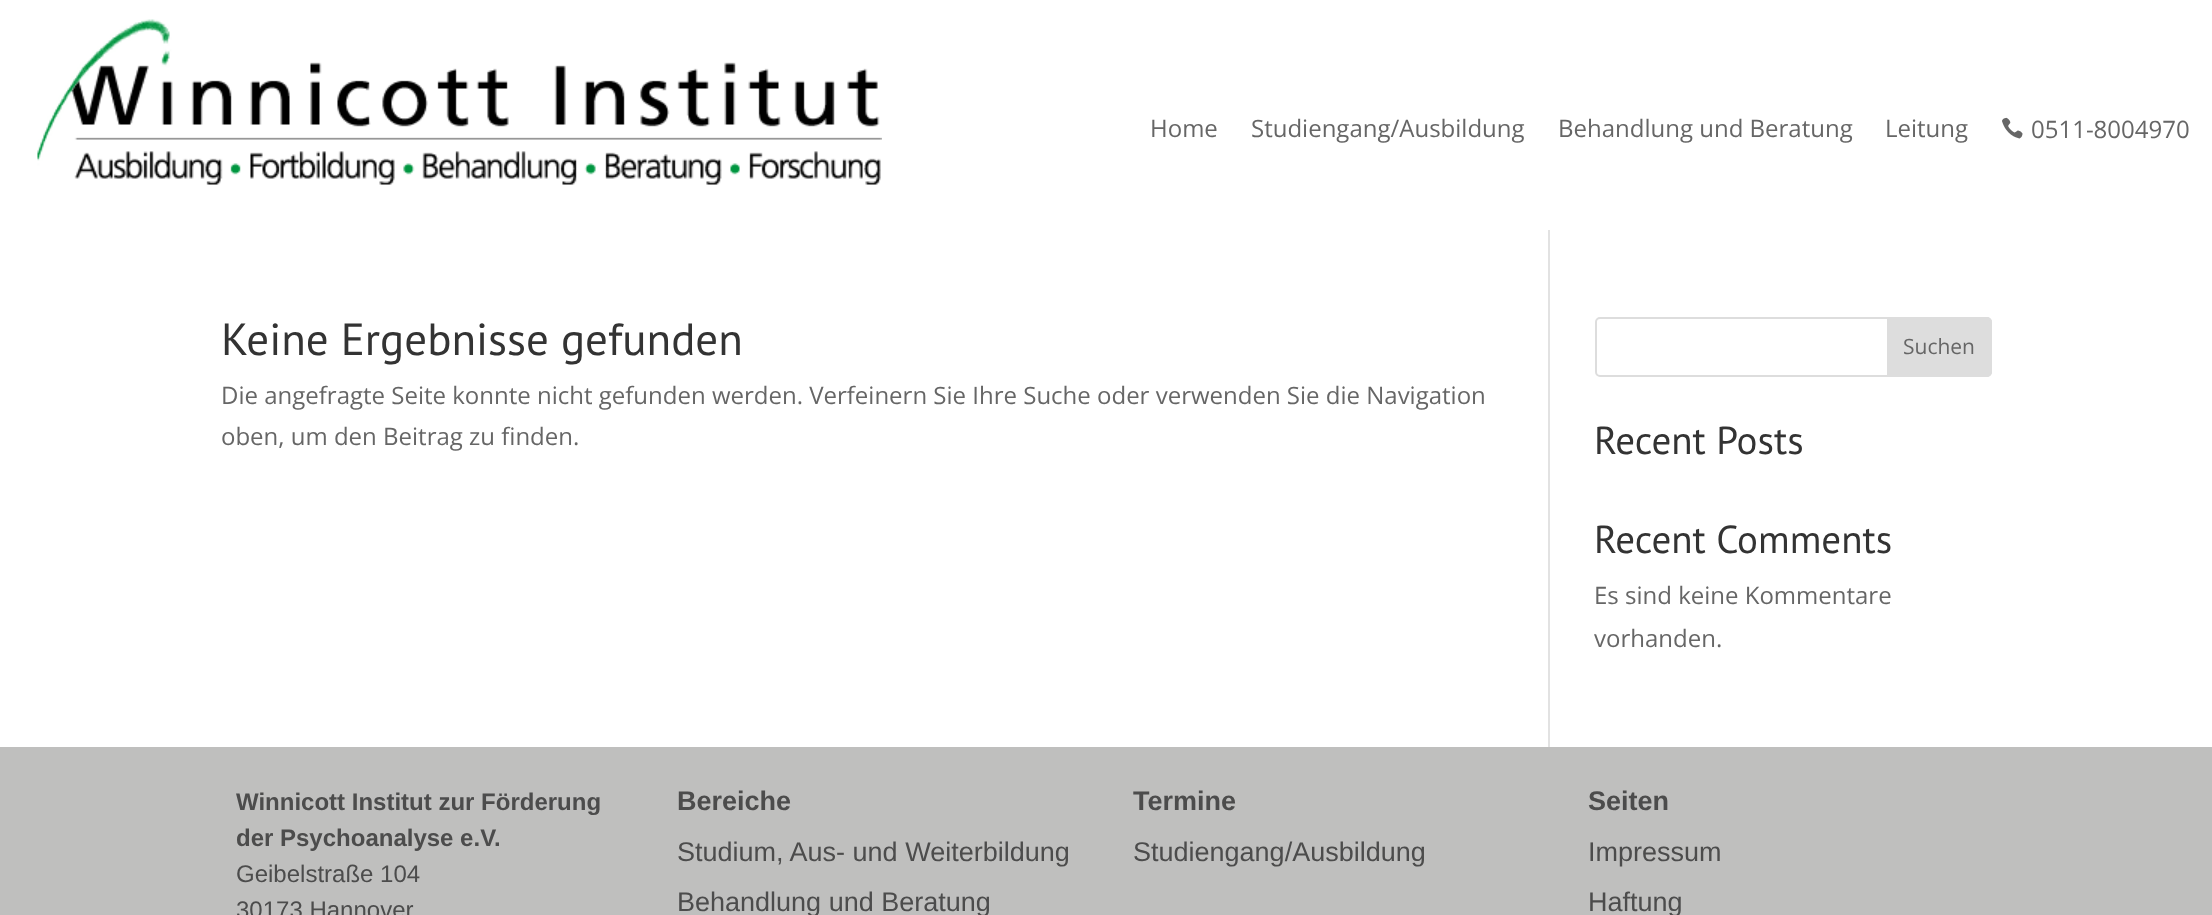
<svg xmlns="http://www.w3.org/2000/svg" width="2212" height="915">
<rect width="100%" height="100%" fill="#fff"/>
<image x="37" y="19" width="845" height="166" href="media/1.png"/>
<text x="1150" y="137" style="font-family:Open Sans;font-size:24px;fill:#666">Home</text>
<text x="1251" y="137" style="font-family:Open Sans;font-size:24px;fill:#666">Studiengang/Ausbildung</text>
<text x="1558" y="137" style="font-family:Open Sans;font-size:24px;fill:#666">Behandlung und Beratung</text>
<text x="1885" y="137" style="font-family:Open Sans;font-size:24px;fill:#666">Leitung</text>
<image x="2002" y="117" width="21" height="22" href="media/2.png"/>
<text x="2031" y="138" style="font-family:Open Sans;font-size:24px;fill:#666">0511-8004970</text>
<rect x="1548" y="230" width="2" height="517" fill="#e2e2e2"/>
<text x="221" y="355" style="font-family:PT Sans;font-size:45px;fill:#333">Keine Ergebnisse gefunden</text>
<text x="221" y="404" style="font-family:Open Sans;font-size:24px;fill:#666">Die angefragte Seite konnte nicht gefunden werden. Verfeinern Sie Ihre Suche oder verwenden Sie die Navigation</text>
<text x="221" y="445" style="font-family:Open Sans;font-size:24px;fill:#666">oben, um den Beitrag zu finden.</text>
<rect x="1596" y="318" width="395" height="58" rx="4" fill="none" stroke="#ddd" stroke-width="2"/>
<path d="M1888 318h99c2 0 4 2 4 4v50c0 2-2 4-4 4h-99z" fill="#ddd" stroke="#ddd" stroke-width="2"/>
<text x="1903" y="354" style="font-family:Open Sans;font-size:21px;fill:#666">Suchen</text>
<text x="1594" y="454" style="font-family:PT Sans;font-size:39px;fill:#333">Recent Posts</text>
<text x="1594" y="553" style="font-family:PT Sans;font-size:39px;fill:#333">Recent Comments</text>
<text x="1594" y="604" style="font-family:Open Sans;font-size:24px;fill:#666">Es sind keine Kommentare</text>
<text x="1594" y="647" style="font-family:Open Sans;font-size:24px;fill:#666">vorhanden.</text>
<rect y="747" width="2212" height="168" fill="#bfbfbe"/>
<text x="236" y="810" style="font-family:Liberation Sans;font-size:24px;font-weight:bold;fill:#4c4c4c">Winnicott Institut zur Förderung</text>
<text x="236" y="846" style="font-family:Liberation Sans;font-size:24px;font-weight:bold;fill:#4c4c4c">der Psychoanalyse e.V.</text>
<text x="236" y="882" style="font-family:Liberation Sans;font-size:24px;fill:#4c4c4c">Geibelstraße 104</text>
<text x="236" y="918" style="font-family:Liberation Sans;font-size:24px;fill:#4c4c4c">30173 Hannover</text>
<text x="677" y="810" style="font-family:Liberation Sans;font-size:27px;font-weight:bold;fill:#4c4c4c">Bereiche</text>
<text x="677" y="861" style="font-family:Liberation Sans;font-size:27px;fill:#4c4c4c">Studium, Aus- und Weiterbildung</text>
<text x="677" y="911" style="font-family:Liberation Sans;font-size:27px;fill:#4c4c4c">Behandlung und Beratung</text>
<text x="1133" y="810" style="font-family:Liberation Sans;font-size:27px;font-weight:bold;fill:#4c4c4c">Termine</text>
<text x="1133" y="861" style="font-family:Liberation Sans;font-size:27px;fill:#4c4c4c">Studiengang/Ausbildung</text>
<text x="1588" y="810" style="font-family:Liberation Sans;font-size:27px;font-weight:bold;fill:#4c4c4c">Seiten</text>
<text x="1588" y="861" style="font-family:Liberation Sans;font-size:27px;fill:#4c4c4c">Impressum</text>
<text x="1588" y="911" style="font-family:Liberation Sans;font-size:27px;fill:#4c4c4c">Haftung</text>
</svg>
